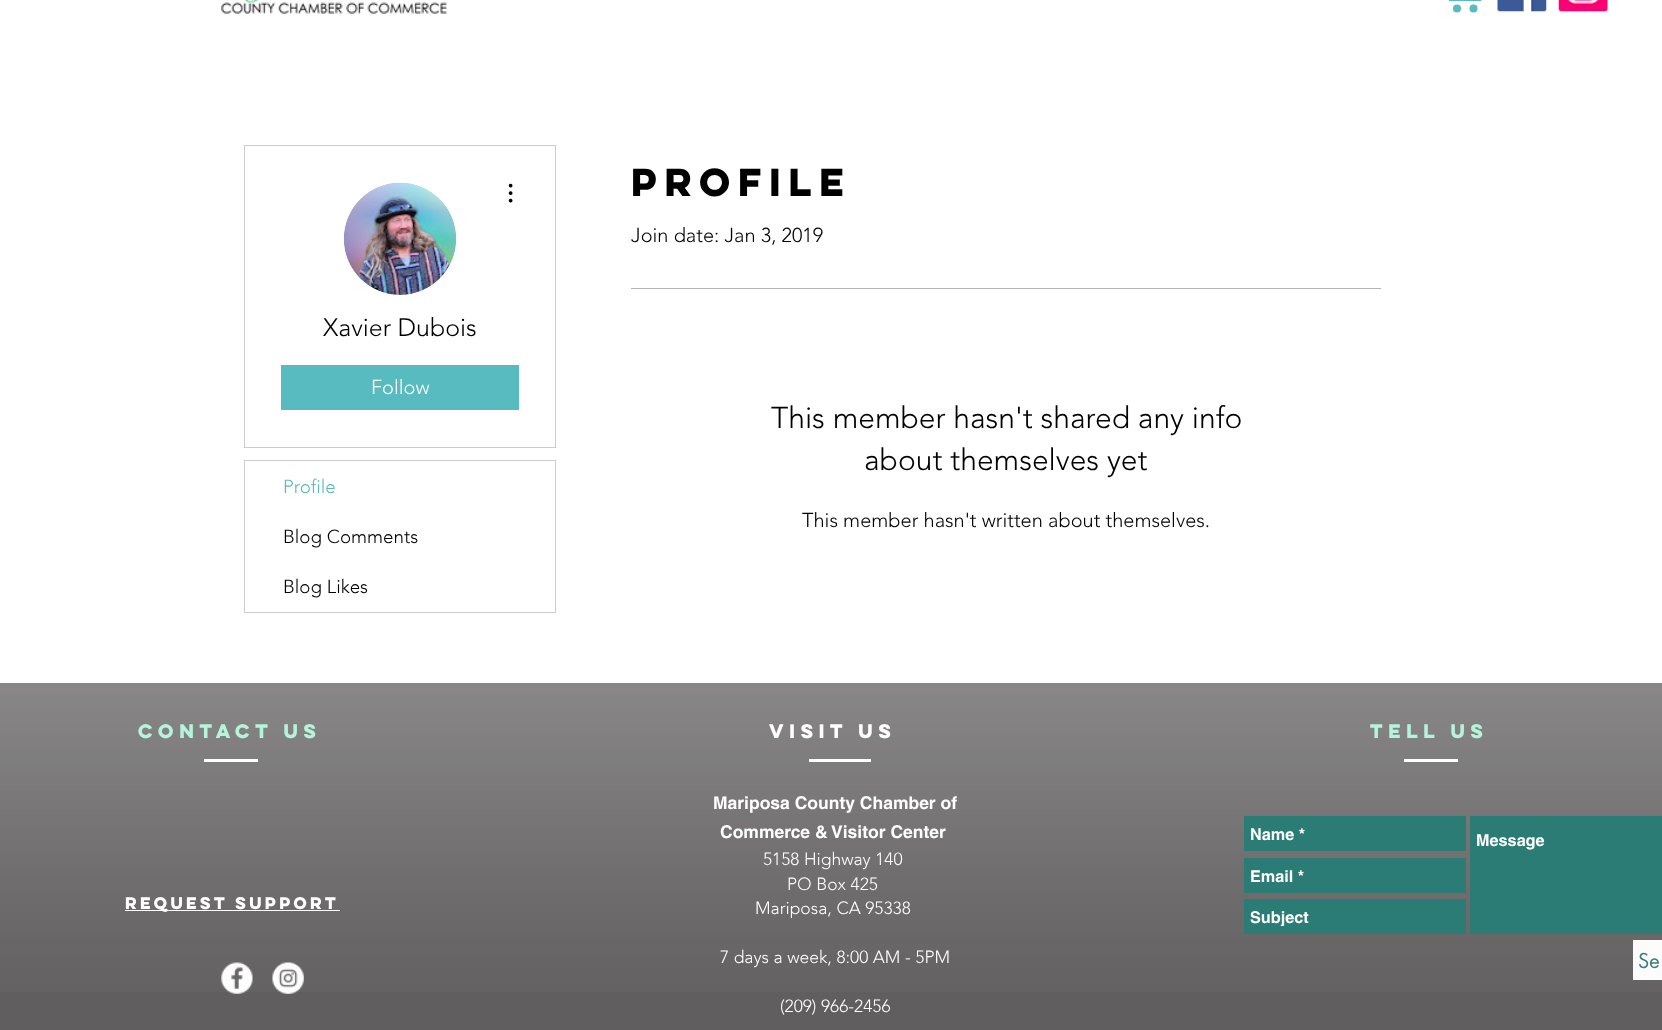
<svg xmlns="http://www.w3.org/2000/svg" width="1662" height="1030">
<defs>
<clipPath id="clip1"><rect x="1250" y="906" width="213" height="20"/></clipPath>
</defs>
<rect width="100%" height="100%" fill="#fff"/>
<image x="221" y="0" width="227" height="14" href="media/1.png"/>
<path d="M1490-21l-9 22h-32l-12-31h-8v-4h11l11 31h28l6-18" fill="#57bbbf"/>
<circle cx="1473.5" cy="8.5" r="4" fill="#57bbbf"/>
<circle cx="1457" cy="8.5" r="4" fill="#57bbbf"/>
<image x="1497" y="0" width="50" height="12" href="media/2.png"/>
<image x="1558" y="0" width="50" height="12" href="media/3.png"/>
<rect x="244.5" y="145.5" width="311" height="302" fill="none" stroke="#ccc"/>
<circle cx="400" cy="239" r="56" fill="#d8d8d8"/>
<image x="344" y="182" width="112" height="113" href="media/4.png"/>
<image x="508" y="183" width="5" height="20" href="media/5.png"/>
<text x="323" y="336" style="font-family:'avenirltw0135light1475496';font-size:25px;font-weight:300;fill:#000">Xavier Dubois</text>
<rect x="281" y="365" width="238" height="45" fill="#57bbbf"/>
<text x="371" y="394" style="font-family:'avenirltw0135light1475496';font-size:20px;font-weight:300;fill:#fff">Follow</text>
<rect x="244.5" y="460.5" width="311" height="152" fill="none" stroke="#ccc"/>
<text x="283" y="493" style="font-family:'avenirltw0135light1475496';font-size:18.75px;font-weight:300;fill:#57bbbf">Profile</text>
<text x="283" y="543" style="font-family:'avenirltw0135light1475496';font-size:18.75px;font-weight:300;fill:#000">Blog Comments</text>
<text x="283" y="593" style="font-family:'avenirltw0135light1475496';font-size:18.75px;font-weight:300;fill:#000">Blog Likes</text>
<text x="631" y="196" style="font-family:'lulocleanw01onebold';font-size:35px;font-weight:bold;fill:#000">Profile</text>
<text x="631" y="242" style="font-family:'avenirltw0135light1475496';font-size:20px;font-weight:300;fill:#000">Join date: Jan 3, 2019</text>
<rect x="631" y="288" width="750" height="1" fill="#b3b3b3"/>
<text x="771" y="428" style="font-family:'avenirltw0135light1475496';font-size:30px;font-weight:300;fill:#000">This member hasn't shared any info</text>
<text x="864" y="470" style="font-family:'avenirltw0135light1475496';font-size:30px;font-weight:300;fill:#000">about themselves yet</text>
<text x="802" y="527" style="font-family:'avenirltw0135light1475496';font-size:20px;font-weight:300;fill:#000">This member hasn't written about themselves.</text>
<rect y="683" width="1662" height="347" fill="#605e5e"/>
<image x="0" y="683" width="1662" height="309" href="media/6.png"/>
<text x="138" y="738" style="font-family:'lulocleanw01onebold';font-size:17.5px;font-weight:bold;letter-spacing:1.75px;fill:#b5f3da">CONTACt us</text>
<text x="769" y="738" style="font-family:'lulocleanw01onebold';font-size:17.5px;font-weight:bold;letter-spacing:1.75px;fill:#fff">VISIt us</text>
<text x="1370" y="738" style="font-family:'lulocleanw01onebold';font-size:17.5px;font-weight:bold;letter-spacing:1.75px;fill:#b5f3da">TELL US</text>
<rect x="204" y="759" width="54" height="3" fill="#fff"/>
<rect x="809" y="759" width="62" height="3" fill="#fff"/>
<rect x="1404" y="759" width="54" height="3" fill="#fff"/>
<rect x="125" y="910" width="215" height="1" fill="#fff"/>
<text x="125" y="909" style="font-family:'lulocleanw01onebold';font-size:15px;font-weight:bold;fill:#fff">Request support</text>
<text x="713" y="809" style="font-family:helvetica;font-size:17.5px;font-weight:bold;fill:#fff">Mariposa County Chamber of</text>
<text x="720" y="838" style="font-family:helvetica;font-size:17.5px;font-weight:bold;fill:#fff">Commerce &amp; Visitor Center</text>
<text x="763" y="865" style="font-family:'avenirltw0135light1475496';font-size:17.5px;font-weight:300;fill:#fff">5158 Highway 140</text>
<text x="787" y="890" style="font-family:'avenirltw0135light1475496';font-size:17.5px;font-weight:300;fill:#fff">PO Box 425</text>
<text x="755" y="914" style="font-family:'avenirltw0135light1475496';font-size:17.5px;font-weight:300;fill:#fff">Mariposa, CA 95338</text>
<text x="720" y="963" style="font-family:'avenirltw0135light1475496';font-size:17.5px;font-weight:300;fill:#fff">7 days a week, 8:00 AM - 5PM</text>
<text x="780" y="1012" style="font-family:'avenirltw0135light1475496';font-size:17.5px;font-weight:300;fill:#fff">(209) 966-2456</text>
<rect x="1244" y="816" width="222" height="35" fill="#2b7c74"/>
<text x="1250" y="840" style="font-family:helvetica;font-size:16.25px;font-weight:bold;fill:#fff">Name *</text>
<rect x="1470" y="816" width="192" height="118" fill="#2b7c74"/>
<text x="1476" y="846" style="font-family:helvetica;font-size:16.25px;font-weight:bold;fill:#fff">Message</text>
<rect x="1244" y="858" width="222" height="35" fill="#2b7c74"/>
<text x="1250" y="882" style="font-family:helvetica;font-size:16.25px;font-weight:bold;fill:#fff">Email *</text>
<rect x="1244" y="899" width="222" height="35" fill="#2b7c74"/>
<g clip-path="url(#clip1)">
<text x="1250" y="923" style="font-family:helvetica;font-size:16.25px;font-weight:bold;fill:#fff">Subject</text>
</g>
<rect x="1633" y="940" width="29" height="40" fill="#fcfcfc"/>
<text x="1638" y="968" style="font-family:futura;font-size:20px;fill:#3a7c80">Se</text>
<image x="221" y="962" width="32" height="32" href="media/7.png"/>
<image x="272" y="962" width="32" height="32" href="media/8.png"/>
</svg>
